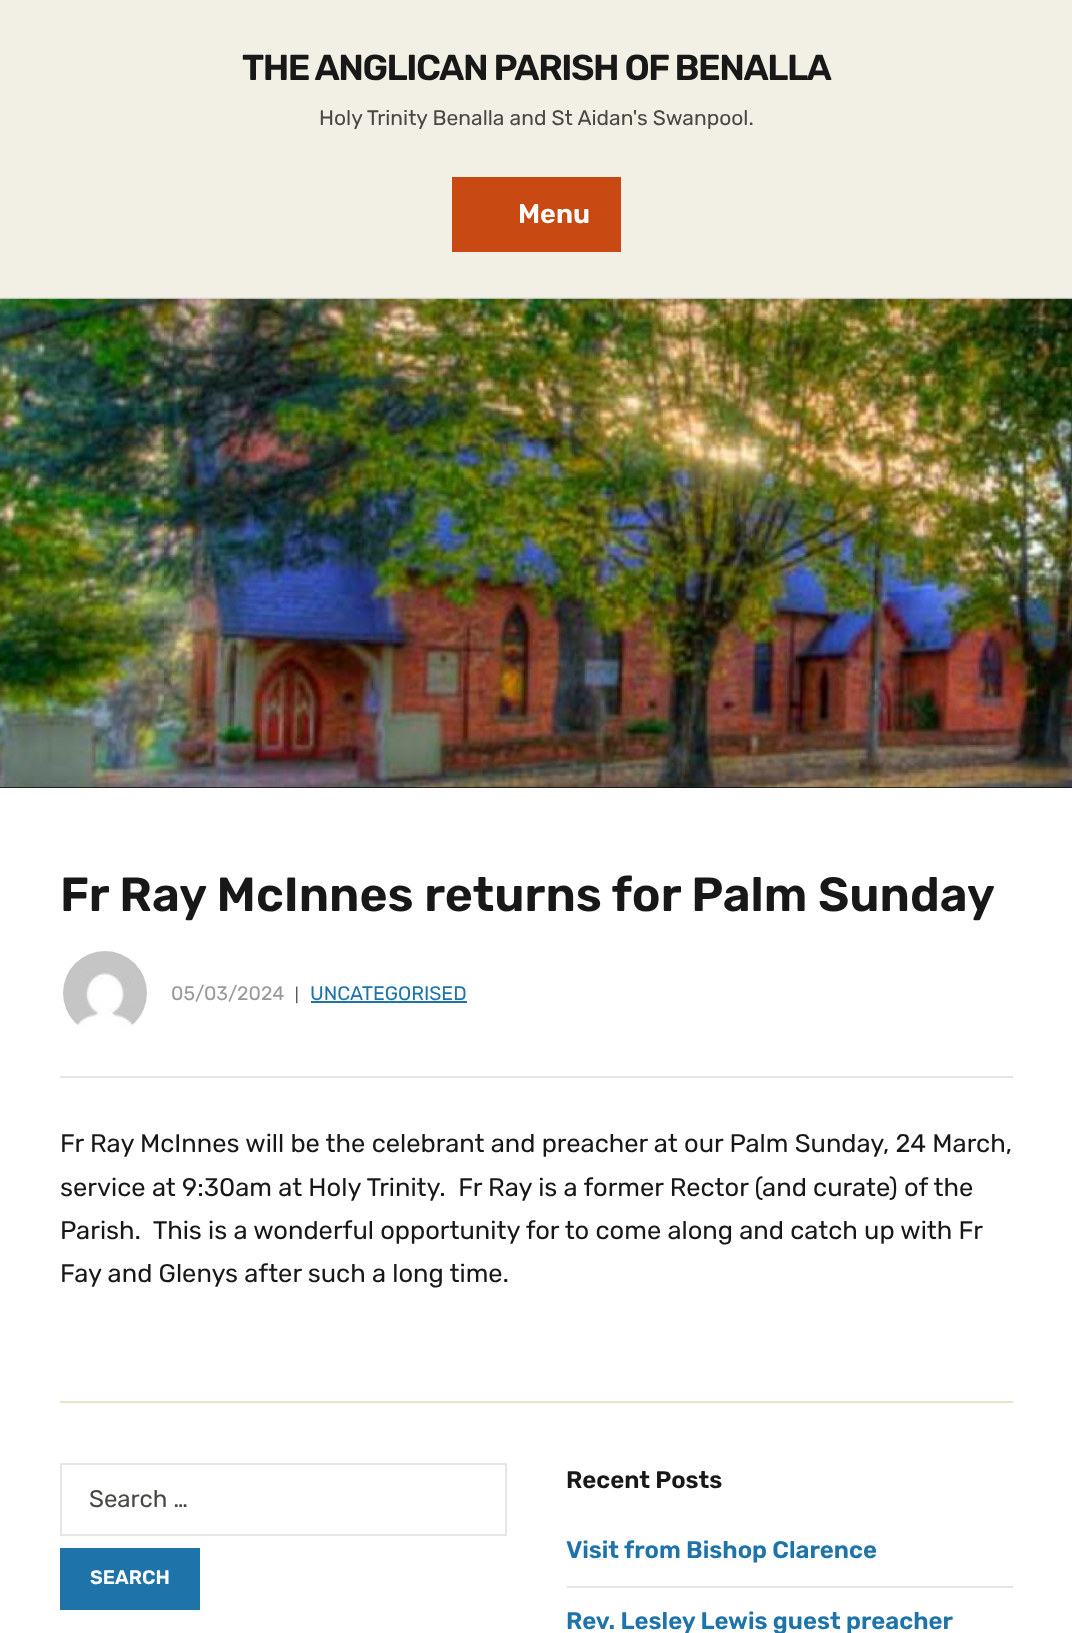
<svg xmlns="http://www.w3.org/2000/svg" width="1072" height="1633">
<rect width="100%" height="100%" fill="#fff"/>
<rect width="1072" height="297" fill="#f2f0e4"/>
<rect y="297" width="1072" height="2" fill="#e7e3e0"/>
<text x="242" y="80" style="font-family:Rubik;font-size:36px;font-weight:600;letter-spacing:-1.5px;fill:#181818">THE ANGLICAN PARISH OF BENALLA</text>
<text x="319" y="125" style="font-family:Rubik;font-size:21px;fill:#494844">Holy Trinity Benalla and St Aidan's Swanpool.</text>
<rect x="452" y="177" width="169" height="75" fill="#c94913"/>
<text x="518" y="223" style="font-family:Rubik;font-size:27px;font-weight:600;fill:#fff">Menu</text>
<rect y="787" width="1072" height="1" fill="#090909"/>
<image x="0" y="298" width="1072" height="490" href="media/1.png"/>
<rect x="60" y="1076" width="953" height="2" fill="#e6e6e6"/>
<text x="60" y="911" style="font-family:Rubik;font-size:48px;font-weight:600;fill:#181818">Fr Ray McInnes returns for Palm Sunday</text>
<image x="63" y="951" width="84" height="77" href="media/2.png"/>
<text x="171" y="1000" style="font-family:Rubik;font-size:19.5px;fill:#999">05/03/2024</text>
<text x="295" y="1000" style="font-family:Rubik;font-size:15px;fill:#494844">|</text>
<text x="310" y="1000" style="font-family:Rubik;font-size:19.5px;fill:#1e74a9">UNCATEGORISED</text>
<rect x="311" y="1001" width="156" height="2" fill="#1e74a9"/>
<text x="60" y="1152" style="font-family:Rubik;font-size:25.5px;fill:#181818">Fr Ray McInnes will be the celebrant and preacher at our Palm Sunday, 24 March,</text>
<text x="60" y="1196" style="font-family:Rubik;font-size:25.5px;fill:#181818" xml:space="preserve">service at 9:30am at Holy Trinity.  Fr Ray is a former Rector (and curate) of the</text>
<text x="60" y="1239" style="font-family:Rubik;font-size:25.5px;fill:#181818" xml:space="preserve">Parish.  This is a wonderful opportunity for to come along and catch up with Fr</text>
<text x="60" y="1282" style="font-family:Rubik;font-size:25.5px;fill:#181818">Fay and Glenys after such a long time.</text>
<rect x="60" y="1401" width="953" height="2" fill="#e9e4c9"/>
<rect x="61" y="1464" width="445" height="71" fill="none" stroke="#e6e6e6" stroke-width="2"/>
<text x="89" y="1507" style="font-family:Rubik;font-size:24px;fill:#494844">Search …</text>
<rect x="60" y="1548" width="140" height="62" fill="#1e74a9"/>
<text x="90" y="1584" style="font-family:Rubik;font-size:19.5px;font-weight:600;fill:#fff">SEARCH</text>
<text x="566" y="1488" style="font-family:Rubik;font-size:24px;font-weight:600;fill:#181818">Recent Posts</text>
<rect x="567" y="1586" width="446" height="2" fill="#e6e6e6"/>
<text x="566" y="1558" style="font-family:Rubik;font-size:24px;font-weight:600;fill:#1e74a9">Visit from Bishop Clarence</text>
<text x="566" y="1629" style="font-family:Rubik;font-size:24px;font-weight:600;fill:#1e74a9">Rev. Lesley Lewis guest preacher</text>
</svg>
